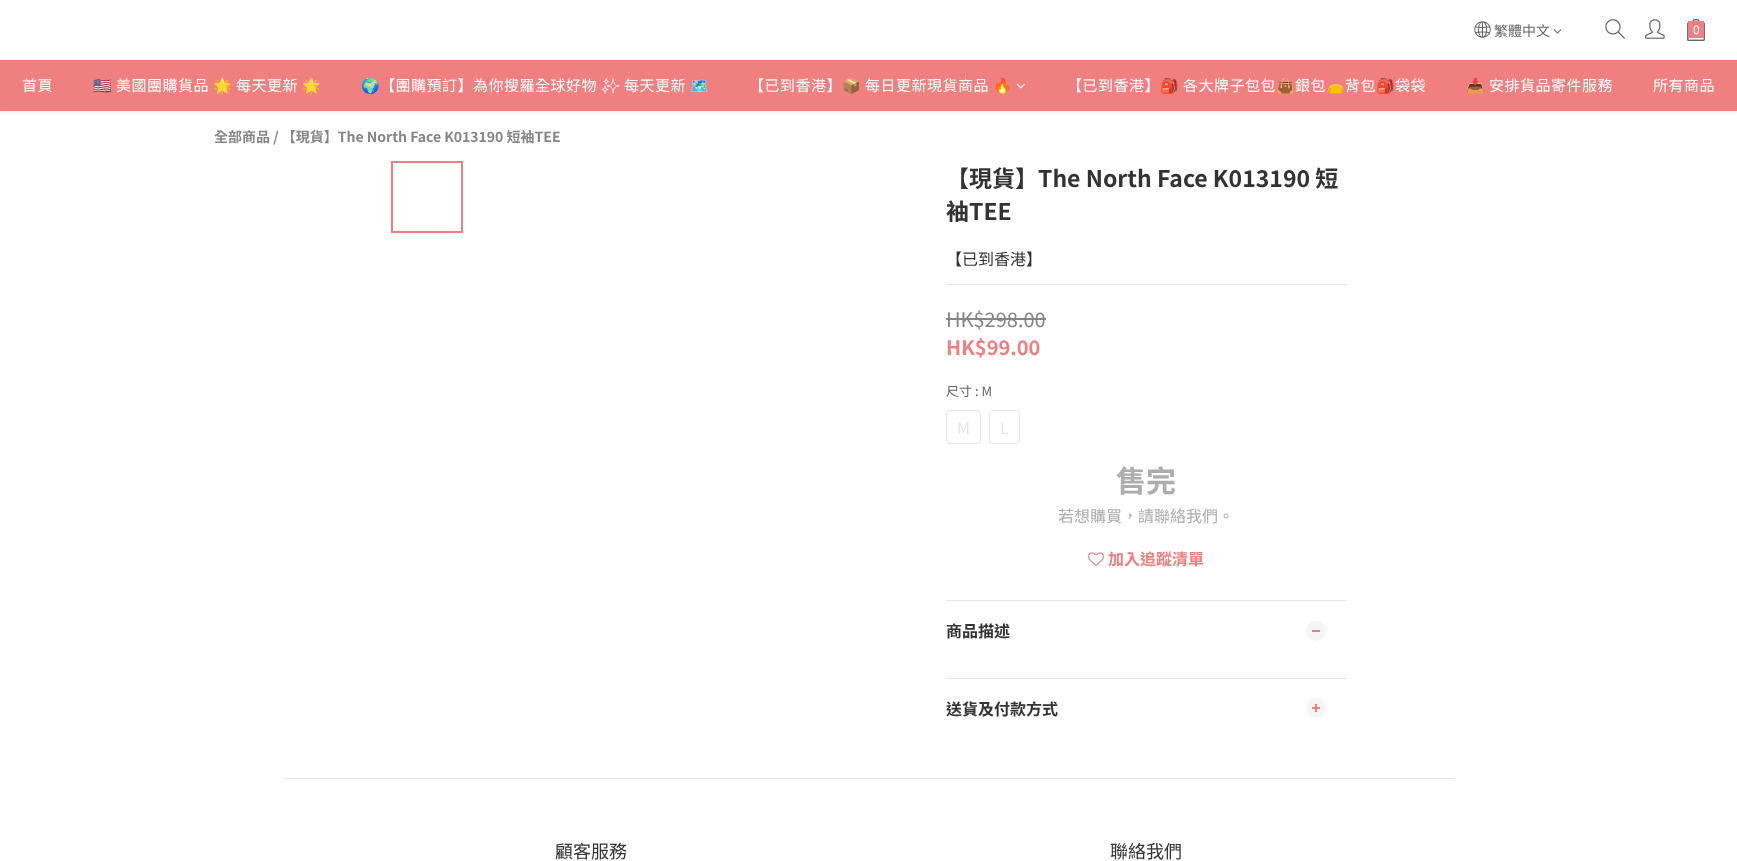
<svg xmlns="http://www.w3.org/2000/svg" width="1737" height="861">
<defs>
<clipPath id="clip1"><rect x="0" y="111" width="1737" height="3"/></clipPath>
</defs>
<rect width="100%" height="100%" fill="#fff"/>
<g clip-path="url(#clip1)">
<rect y="2" width="1737" height="111" fill="#0000000f" filter="blur(3px)"/>
</g>
<image x="1474" y="21" width="17" height="17" href="media/1.png"/>
<text x="1494" y="36" style="font-family:Noto Sans TC;font-size:14px;fill:#666">繁體中文</text>
<image x="1553" y="29" width="9" height="5" href="media/2.png"/>
<image x="1605" y="19" width="20" height="20" href="media/3.png"/>
<image x="1645" y="19" width="20" height="20" href="media/4.png"/>
<image x="1687" y="19" width="18" height="22" href="media/5.png"/>
<rect x="1688" y="21" width="16" height="17" fill="#f08080"/>
<text x="1693" y="34" style="font-family:Noto Sans TC;font-size:12px;fill:#fff">0</text>
<rect y="60" width="1737" height="51" fill="#f08080"/>
<text x="22" y="91" style="font-family:Noto Sans TC;font-size:15px;letter-spacing:0.5px;fill:#fff">首頁</text>
<text x="93" y="91" style="font-family:Noto Color Emoji;font-size:15px;letter-spacing:0.5px;fill:#fff">🇺🇸</text>
<text x="116" y="91" style="font-family:Noto Sans TC;font-size:15px;letter-spacing:0.5px;fill:#fff">美國團購貨品</text>
<text x="213" y="91" style="font-family:Noto Color Emoji;font-size:15px;letter-spacing:0.5px;fill:#fff">🌟</text>
<text x="236" y="91" style="font-family:Noto Sans TC;font-size:15px;letter-spacing:0.5px;fill:#fff">每天更新</text>
<text x="302" y="91" style="font-family:Noto Color Emoji;font-size:15px;letter-spacing:0.5px;fill:#fff">🌟</text>
<text x="361" y="91" style="font-family:Noto Color Emoji;font-size:15px;letter-spacing:0.5px;fill:#fff">🌍</text>
<text x="380" y="91" style="font-family:Noto Sans TC;font-size:15px;letter-spacing:0.5px;fill:#fff">【團購預訂】為你搜羅全球好物</text>
<text x="601" y="91" style="font-family:Noto Emoji;font-size:15px;letter-spacing:0.5px;fill:#fff">✨</text>
<text x="624" y="91" style="font-family:Noto Sans TC;font-size:15px;letter-spacing:0.5px;fill:#fff">每天更新</text>
<text x="690" y="91" style="font-family:Noto Color Emoji;font-size:15px;letter-spacing:0.5px;fill:#fff">🗺</text>
<text x="749" y="91" style="font-family:Noto Sans TC;font-size:15px;letter-spacing:0.5px;fill:#fff">【已到香港】</text>
<text x="842" y="91" style="font-family:Noto Color Emoji;font-size:15px;letter-spacing:0.5px;fill:#fff">📦</text>
<text x="865" y="91" style="font-family:Noto Sans TC;font-size:15px;letter-spacing:0.5px;fill:#fff">每日更新現貨商品</text>
<text x="993" y="91" style="font-family:Noto Color Emoji;font-size:15px;letter-spacing:0.5px;fill:#fff">🔥</text>
<image x="1016" y="83" width="9" height="6" href="media/6.png"/>
<text x="1067" y="91" style="font-family:Noto Sans TC;font-size:15px;letter-spacing:0.5px;fill:#fff">【已到香港】</text>
<text x="1160" y="91" style="font-family:Noto Color Emoji;font-size:15px;letter-spacing:0.5px;fill:#fff">🎒</text>
<text x="1183" y="91" style="font-family:Noto Sans TC;font-size:15px;letter-spacing:0.5px;fill:#fff">各大牌子包包</text>
<text x="1276" y="91" style="font-family:Noto Color Emoji;font-size:15px;letter-spacing:0.5px;fill:#fff">👜</text>
<text x="1295" y="91" style="font-family:Noto Sans TC;font-size:15px;letter-spacing:0.5px;fill:#fff">銀包</text>
<text x="1326" y="91" style="font-family:Noto Color Emoji;font-size:15px;letter-spacing:0.5px;fill:#fff">👝</text>
<text x="1345" y="91" style="font-family:Noto Sans TC;font-size:15px;letter-spacing:0.5px;fill:#fff">背包</text>
<text x="1376" y="91" style="font-family:Noto Color Emoji;font-size:15px;letter-spacing:0.5px;fill:#fff">🎒</text>
<text x="1395" y="91" style="font-family:Noto Sans TC;font-size:15px;letter-spacing:0.5px;fill:#fff">袋袋</text>
<text x="1466" y="91" style="font-family:Noto Color Emoji;font-size:15px;letter-spacing:0.5px;fill:#fff">📥</text>
<text x="1489" y="91" style="font-family:Noto Sans TC;font-size:15px;letter-spacing:0.5px;fill:#fff">安排貨品寄件服務</text>
<text x="1653" y="91" style="font-family:Noto Sans TC;font-size:15px;letter-spacing:0.5px;fill:#fff">所有商品</text>
<text x="214" y="142" style="font-family:Noto Sans TC;font-size:14px;font-weight:bold;fill:#858585">全部商品 / 【現貨】The North Face K013190 短袖TEE</text>
<rect x="392" y="162" width="70" height="70" fill="none" stroke="#f08080" stroke-width="2"/>
<text x="946" y="187" style="font-family:Noto Sans TC;font-size:23px;font-weight:bold;fill:#333">【現貨】The North Face K013190 短</text>
<text x="946" y="220" style="font-family:Noto Sans TC;font-size:23px;font-weight:bold;fill:#333">袖TEE</text>
<text x="946" y="265" style="font-family:Noto Sans TC;font-size:16px;fill:#333">【已到香港】</text>
<rect x="946" y="284" width="400" height="1" fill="#e6e6e6"/>
<text x="946" y="327" style="font-family:Noto Sans TC;font-size:20px;fill:#858585">HK$298.00</text>
<rect x="946" y="318" width="100" height="2" fill="#858585"/>
<text x="946" y="355" style="font-family:Noto Sans TC;font-size:20px;font-weight:bold;fill:#f08080">HK$99.00</text>
<text x="946" y="396" style="font-family:Noto Sans TC;font-size:13px;fill:#666">尺寸 : M</text>
<rect x="946.5" y="410.5" width="34" height="33" rx="3.5" fill="none" stroke="#e6e6e6"/>
<text x="957" y="434" style="font-family:Noto Sans TC;font-size:16px;fill:#e6e6e6">M</text>
<rect x="989.5" y="410.5" width="30" height="33" rx="3.5" fill="none" stroke="#e6e6e6"/>
<text x="1000" y="434" style="font-family:Noto Sans TC;font-size:16px;fill:#e6e6e6">L</text>
<text x="1116" y="492" style="font-family:Noto Sans TC;font-size:30px;font-weight:bold;fill:#adadad">售完</text>
<text x="1058" y="522" style="font-family:Noto Sans TC;font-size:16px;fill:#adadad">若想購買，請聯絡我們。</text>
<image x="1088" y="552" width="16" height="14" href="media/7.png"/>
<text x="1108" y="565" style="font-family:Noto Sans TC;font-size:16px;font-weight:bold;fill:#f08080">加入追蹤清單</text>
<rect x="946" y="600" width="400" height="1" fill="#e6e6e6"/>
<text x="946" y="637" style="font-family:Noto Sans TC;font-size:16px;font-weight:bold;fill:#333">商品描述</text>
<circle cx="1316" cy="631" r="10" fill="#f5f5f5"/>
<rect x="1312" y="630" width="8" height="2" fill="#f08080"/>
<rect x="946" y="678" width="400" height="1" fill="#e6e6e6"/>
<text x="946" y="715" style="font-family:Noto Sans TC;font-size:16px;font-weight:bold;fill:#333">送貨及付款方式</text>
<circle cx="1316" cy="708" r="10" fill="#f5f5f5"/>
<rect x="1312" y="707" width="8" height="2" fill="#f08080"/>
<rect x="1315" y="704" width="2" height="8" fill="#f08080"/>
<rect x="284" y="778" width="1170" height="1" fill="#e6e6e6"/>
<text x="555" y="858" style="font-family:Noto Sans TC;font-size:18px;fill:#333">顧客服務</text>
<text x="1110" y="858" style="font-family:Noto Sans TC;font-size:18px;fill:#333">聯絡我們</text>
</svg>
